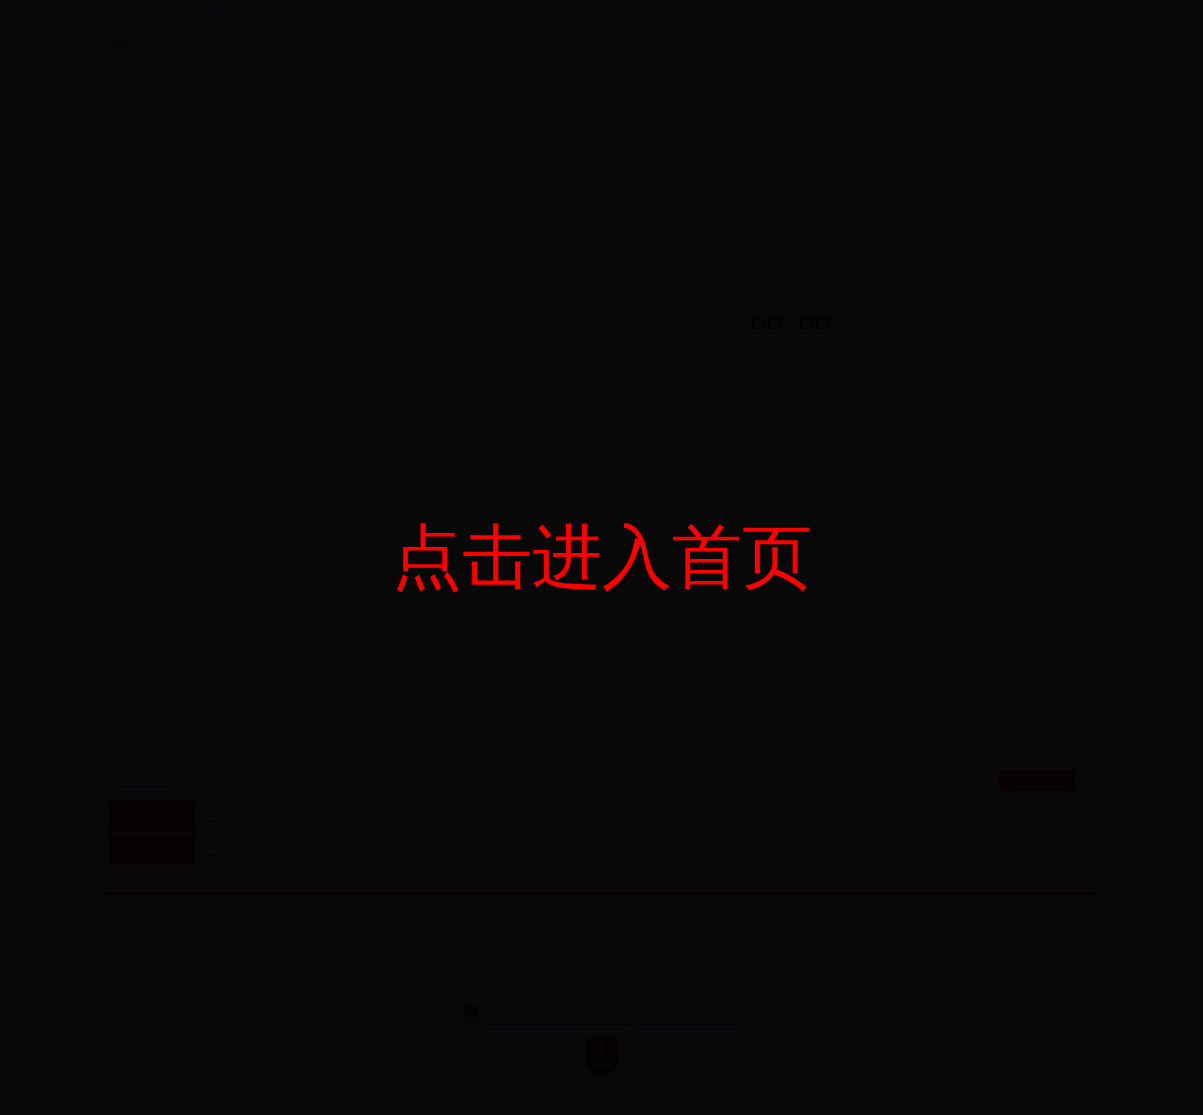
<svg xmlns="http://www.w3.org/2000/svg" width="1203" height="1115">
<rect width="100%" height="100%" fill="#080808"/>
<rect x="8.5" y="-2.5" width="187" height="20" rx="1.5" fill="none" stroke="#040404"/>
<rect x="200" y="12" width="36" height="1" fill="#000007"/>
<image x="112" y="35" width="14" height="20" href="media/1.png"/>
<rect x="224" y="52" width="32" height="1" fill="#000007"/>
<rect x="272" y="52" width="64" height="1" fill="#000007"/>
<image x="752" y="316" width="13" height="13" href="media/2.png"/>
<image x="768" y="316" width="13" height="13" href="media/3.png"/>
<image x="800" y="316" width="13" height="13" href="media/4.png"/>
<image x="816" y="316" width="13" height="13" href="media/5.png"/>
<rect x="114" y="786" width="56" height="1" fill="#010107"/>
<rect x="999" y="770" width="76" height="21" rx="5" fill="#070201"/>
<rect x="1009" y="786" width="56" height="1" fill="#080808"/>
<rect x="109" y="801" width="86" height="30" fill="#070201"/>
<rect x="205" y="821" width="14" height="1" fill="#010107"/>
<rect x="109" y="835" width="86" height="30" fill="#070201"/>
<rect x="205" y="855" width="14" height="1" fill="#010107"/>
<rect x="103" y="893" width="998" height="2" fill="#070101"/>
<image x="461" y="1003" width="20" height="20" href="media/6.png"/>
<rect x="484" y="1024" width="147" height="1" fill="#000007"/>
<rect x="637" y="1024" width="105" height="1" fill="#000007"/>
<image x="584" y="1034" width="35" height="43" href="media/7.png"/>
<text x="392" y="581" style="font-family:WenQuanYi Zen Hei;font-size:70px;font-weight:500;fill:#f00">点击进入首页</text>
</svg>
